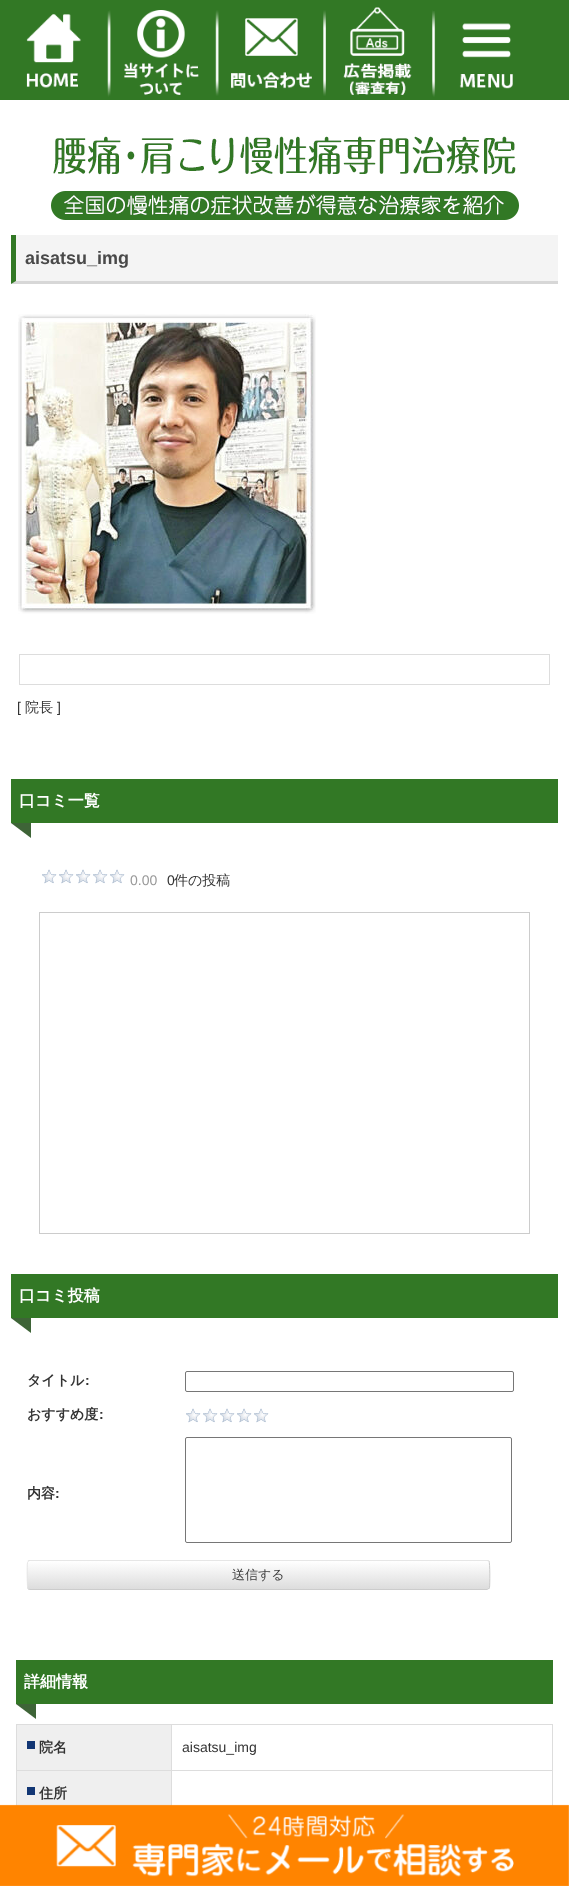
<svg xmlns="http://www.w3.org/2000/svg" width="569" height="1886">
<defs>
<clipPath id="clip1"><rect x="27" y="1560" width="463" height="30" rx="3"/></clipPath>
<linearGradient id="g1" gradientUnits="userSpaceOnUse" x1="28" y1="1533" x2="28" y2="1581"><stop offset="0" stop-color="#fff"/><stop offset="1" stop-color="#c4c4c4"/></linearGradient>
<linearGradient id="g2" gradientUnits="userSpaceOnUse" x1="28" y1="1561" x2="28" y2="1609"><stop offset="0" stop-color="#fff"/><stop offset="1" stop-color="#c4c4c4"/></linearGradient>
</defs>
<rect width="100%" height="100%" fill="#fff"/>
<rect width="569" height="100" fill="#327825"/>
<image x="26" y="11" width="83" height="86" href="media/1.png"/>
<image x="109" y="10" width="108" height="86" href="media/2.png"/>
<image x="217" y="10" width="108" height="86" href="media/3.png"/>
<image x="325" y="7" width="108" height="89" href="media/4.png"/>
<image x="433" y="11" width="80" height="86" href="media/5.png"/>
<image x="51" y="136" width="468" height="84" href="media/6.png"/>
<rect x="11" y="235" width="547" height="49" fill="#f4f4f4"/>
<path d="M558 284h-547l5-3h542z" fill="#d7d7d7"/>
<path d="M11 284v-49h5v46z" fill="#327825"/>
<text x="25" y="264" style="font-family:Liberation Sans;font-size:18px;font-weight:bold;fill:#494949">aisatsu_img</text>
<image x="18" y="314" width="298" height="300" href="media/7.png"/>
<rect x="19.5" y="654.5" width="530" height="30" fill="none" stroke="#ddd"/>
<text x="17" y="712" style="font-family:Liberation Sans;font-size:14px;fill:#333">[</text>
<text x="25" y="712" style="font-family:WenQuanYi Zen Hei;font-size:14px;font-weight:500;fill:#333">院長</text>
<text x="57" y="712" style="font-family:Liberation Sans;font-size:14px;fill:#333">]</text>
<rect x="11" y="779" width="547" height="44" fill="#327825"/>
<text x="19" y="806" style="font-family:WenQuanYi Zen Hei;font-size:16px;font-weight:bold;fill:#fff">口コミ一覧</text>
<path d="M31 823v15l-20-15z" fill="#3e6437"/>
<image x="42" y="869" width="83" height="15" href="media/8.png"/>
<text x="130" y="885" style="font-family:Liberation Sans;font-size:14px;fill:#999">0.00</text>
<text x="167" y="885" style="font-family:Liberation Sans;font-size:14px;fill:#333">0</text>
<text x="174" y="885" style="font-family:WenQuanYi Zen Hei;font-size:14px;font-weight:500;fill:#333">件の投稿</text>
<rect x="39.5" y="912.5" width="490" height="321" fill="none" stroke="#ccc"/>
<rect x="11" y="1274" width="547" height="44" fill="#327825"/>
<text x="19" y="1301" style="font-family:WenQuanYi Zen Hei;font-size:16px;font-weight:bold;fill:#fff">口コミ投稿</text>
<path d="M31 1318v15l-20-15z" fill="#3e6437"/>
<text x="27" y="1385" style="font-family:WenQuanYi Zen Hei;font-size:14px;font-weight:bold;fill:#333">タイトル</text>
<text x="85" y="1385" style="font-family:Liberation Sans;font-size:14px;font-weight:bold;fill:#333">:</text>
<rect x="185.5" y="1371.5" width="328" height="20" rx="1.5" fill="none" stroke="#767676"/>
<text x="27" y="1419" style="font-family:WenQuanYi Zen Hei;font-size:14px;font-weight:bold;fill:#333">おすすめ度</text>
<text x="99" y="1419" style="font-family:Liberation Sans;font-size:14px;font-weight:bold;fill:#333">:</text>
<image x="186" y="1408" width="83" height="15" href="media/8.png"/>
<text x="27" y="1498" style="font-family:WenQuanYi Zen Hei;font-size:14px;font-weight:bold;fill:#333">内容</text>
<text x="55" y="1498" style="font-family:Liberation Sans;font-size:14px;font-weight:bold;fill:#333">:</text>
<rect x="185.5" y="1437.5" width="326" height="105" rx="1.5" fill="none" stroke="#767676"/>
<g clip-path="url(#clip1)">
<rect x="27" y="1560" width="463" height="1" fill="url(#g1)"/>
<rect x="27" y="1561" width="463" height="28" fill="url(#g2)"/>
</g>
<path d="M489 1561c1 1.5 1 24 .5 26.5c-.5 1-1.5 2-2.5 2h-457l-2-.5" fill="none" stroke="#ccc"/>
<path d="M28 1589c-1-1.5-1-24-.5-26.5c.5-1 1.5-2 2.5-2h457l2 .5" fill="none" stroke="#e6e6e6"/>
<text x="232" y="1579" style="font-family:WenQuanYi Zen Hei;font-size:13px;font-weight:500;fill:#404040">送信する</text>
<rect x="16" y="1660" width="537" height="44" fill="#327825"/>
<text x="24" y="1687" style="font-family:WenQuanYi Zen Hei;font-size:16px;font-weight:bold;fill:#fff">詳細情報</text>
<path d="M36 1704v15l-20-15z" fill="#3e6437"/>
<rect x="17" y="1725" width="154" height="45" fill="#efefef"/>
<rect x="171" y="1724" width="382" height="1" fill="#ddd"/>
<rect x="171" y="1770" width="382" height="1" fill="#ddd"/>
<rect x="171" y="1770" width="1" height="36" fill="#ddd"/>
<rect x="16" y="1770" width="156" height="1" fill="#ddd"/>
<rect x="171" y="1724" width="1" height="47" fill="#ddd"/>
<rect x="16" y="1724" width="156" height="1" fill="#ddd"/>
<rect x="16" y="1770" width="1" height="36" fill="#ddd"/>
<rect x="16" y="1724" width="1" height="47" fill="#ddd"/>
<rect x="27" y="1741" width="8" height="8" fill="#123674"/>
<text x="39" y="1752" style="font-family:WenQuanYi Zen Hei;font-size:14px;font-weight:bold;fill:#333">院名</text>
<rect x="552" y="1770" width="1" height="36" fill="#ddd"/>
<rect x="552" y="1724" width="1" height="47" fill="#ddd"/>
<text x="182" y="1752" style="font-family:Liberation Sans;font-size:14px;fill:#333">aisatsu_img</text>
<rect x="17" y="1771" width="154" height="35" fill="#efefef"/>
<rect x="27" y="1787" width="8" height="8" fill="#123674"/>
<text x="39" y="1798" style="font-family:WenQuanYi Zen Hei;font-size:14px;font-weight:bold;fill:#333">住所</text>
<image x="0" y="1804" width="569" height="82" href="media/9.png"/>
</svg>
